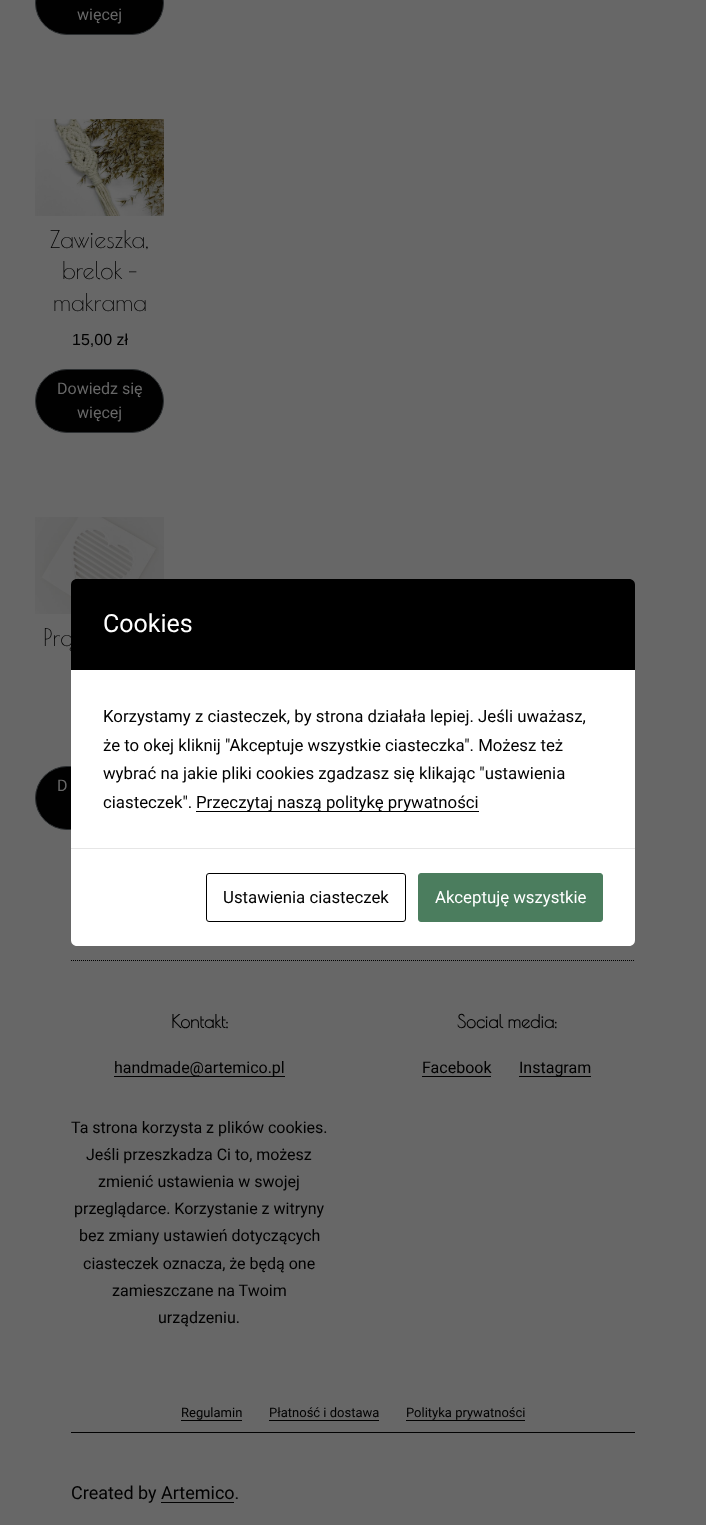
<svg xmlns="http://www.w3.org/2000/svg" width="706" height="1525">
<rect width="100%" height="100%" fill="#676767"/>
<rect x="35.5" y="-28.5" width="128" height="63" rx="31.5" fill="#010101" stroke="#2b2e30"/>
<text x="77" y="20" style="font-family:Roboto;font-size:16px;fill:#676767">więcej</text>
<image x="35" y="119" width="129" height="97" href="media/1.png"/>
<text x="50" y="248" style="font-family:Poiret One;font-size:24px;fill:#010101">Zawieszka,</text>
<text x="62" y="279" style="font-family:Poiret One;font-size:24px;fill:#010101">brelok –</text>
<text x="53" y="311" style="font-family:Poiret One;font-size:24px;fill:#010101">makrama</text>
<text x="72" y="345" style="font-family:Liberation Sans;font-size:16px;fill:#010101">15,00 zł</text>
<rect x="35.5" y="369.5" width="128" height="63" rx="31.5" fill="#010101" stroke="#2b2e30"/>
<text x="57" y="394" style="font-family:Roboto;font-size:16px;fill:#676767">Dowiedz się</text>
<text x="77" y="418" style="font-family:Roboto;font-size:16px;fill:#676767">więcej</text>
<image x="35" y="517" width="129" height="97" href="media/2.png"/>
<text x="43" y="646" style="font-family:Poiret One;font-size:24px;fill:#010101">Prą</text>
<rect x="35.5" y="766.5" width="128" height="63" rx="31.5" fill="#010101" stroke="#2b2e30"/>
<text x="57" y="791" style="font-family:Roboto;font-size:16px;fill:#676767">D</text>
<path d="M71 960.5h564" fill="none" stroke="#010101" stroke-dasharray="1 1"/>
<text x="171" y="1028" style="font-family:Poiret One;font-size:18px;font-weight:bold;fill:#010101">Kontakt:</text>
<rect x="114" y="1076" width="171" height="1" fill="#010101"/>
<text x="114" y="1073" style="font-family:Roboto;font-size:16px;fill:#010101">handmade@artemico.pl</text>
<text x="457" y="1028" style="font-family:Poiret One;font-size:18px;font-weight:bold;fill:#010101">Social media:</text>
<text x="422" y="1073" style="font-family:Roboto;font-size:16px;fill:#010101">Facebook</text>
<rect x="422" y="1076" width="69" height="1" fill="#010101"/>
<rect x="519" y="1076" width="72" height="1" fill="#010101"/>
<text x="519" y="1073" style="font-family:Roboto;font-size:16px;fill:#010101">Instagram</text>
<text x="71" y="1133" style="font-family:Roboto;font-size:16px;fill:#010101">Ta strona korzysta z plików cookies.</text>
<text x="86" y="1160" style="font-family:Roboto;font-size:16px;fill:#010101">Jeśli przeszkadza Ci to, możesz</text>
<text x="98" y="1187" style="font-family:Roboto;font-size:16px;fill:#010101">zmienić ustawienia w swojej</text>
<text x="74" y="1214" style="font-family:Roboto;font-size:16px;fill:#010101">przeglądarce. Korzystanie z witryny</text>
<text x="79" y="1241" style="font-family:Roboto;font-size:16px;fill:#010101">bez zmiany ustawień dotyczących</text>
<text x="83" y="1269" style="font-family:Roboto;font-size:16px;fill:#010101">ciasteczek oznacza, że będą one</text>
<text x="112" y="1296" style="font-family:Roboto;font-size:16px;fill:#010101">zamieszczane na Twoim</text>
<text x="158" y="1323" style="font-family:Roboto;font-size:16px;fill:#010101">urządzeniu.</text>
<text x="181" y="1417" style="font-family:Roboto;font-size:13px;fill:#010101">Regulamin</text>
<rect x="181" y="1420" width="61" height="1" fill="#010101"/>
<text x="269" y="1417" style="font-family:Roboto;font-size:13px;fill:#010101">Płatność i dostawa</text>
<rect x="269" y="1420" width="110" height="1" fill="#010101"/>
<text x="406" y="1417" style="font-family:Roboto;font-size:13px;fill:#010101">Polityka prywatności</text>
<rect x="406" y="1420" width="119" height="1" fill="#010101"/>
<rect x="71" y="1432" width="564" height="1" fill="#010101"/>
<text x="71" y="1499" style="font-family:Roboto;font-size:18px;fill:#010101">Created by Artemico.</text>
<rect x="161" y="1502" width="73" height="1" fill="#010101"/>
<path d="M77 579h552c3.5 0 6 2.5 6 6v85h-564v-85c0-3.5 2.5-6 6-6z" fill="#000"/>
<text x="103" y="632" style="font-family:Roboto;font-size:25px;fill:#fff">Cookies</text>
<rect x="71" y="670" width="564" height="178" fill="#fff"/>
<text x="103" y="722" style="font-family:Roboto;font-size:16.8px;fill:#010101">Korzystamy z ciasteczek, by strona działała lepiej. Jeśli uważasz,</text>
<text x="103" y="751" style="font-family:Roboto;font-size:16.8px;fill:#010101">że to okej kliknij "Akceptuje wszystkie ciasteczka". Możesz też</text>
<text x="103" y="779" style="font-family:Roboto;font-size:16.8px;fill:#010101">wybrać na jakie pliki cookies zgadzasz się klikając "ustawienia</text>
<text x="103" y="808" style="font-family:Roboto;font-size:16.8px;fill:#010101">ciasteczek".</text>
<rect x="196" y="811" width="283" height="1" fill="#000"/>
<text x="196" y="808" style="font-family:Roboto;font-size:16.8px;fill:#010101">Przeczytaj naszą politykę prywatności</text>
<path d="M71 848h564v92c0 3.5-2.5 6-6 6h-552c-3.5 0-6-2.5-6-6z" fill="#fff"/>
<rect x="71" y="848" width="564" height="1" fill="#e6e6e6"/>
<rect x="206.5" y="873.5" width="199" height="48" rx="2.5" fill="none" stroke="#000"/>
<text x="223" y="903" style="font-family:Roboto;font-size:16.8px;fill:#010101">Ustawienia ciasteczek</text>
<rect x="418.5" y="873.5" width="184" height="48" rx="2.5" fill="#4b7d5e" stroke="#4b7d5e"/>
<text x="435" y="903" style="font-family:Roboto;font-size:16.8px;fill:#fff">Akceptuję wszystkie</text>
</svg>
